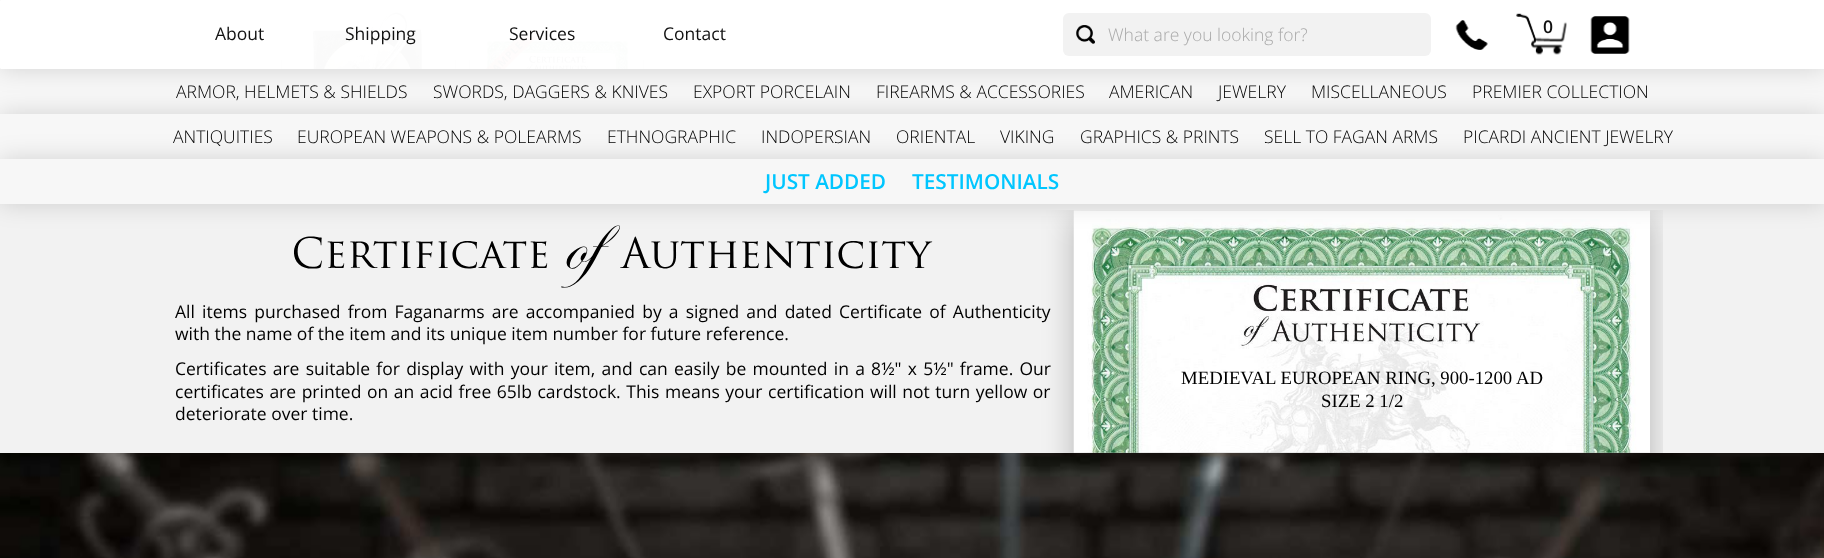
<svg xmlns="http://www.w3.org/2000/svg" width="1824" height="558">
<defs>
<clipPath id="clip1"><path d="M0 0h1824v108h-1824zm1 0h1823c.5 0 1 .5 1 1v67c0 .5-.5 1-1 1h-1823c-.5 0-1-.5-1-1v-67c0-.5 .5-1 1-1z" clip-rule="evenodd"/></clipPath>
<clipPath id="clip2"><rect x="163" y="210" width="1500" height="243"/></clipPath>
</defs>
<rect width="100%" height="100%" fill="#f2f2f2"/>
<rect x="281.5" y="-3.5" width="174" height="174" rx="5.5" fill="#fff" stroke="#ddd"/>
<image x="310" y="10" width="119" height="59" href="media/5.png"/>
<rect x="469.5" y="-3.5" width="174" height="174" rx="5.5" fill="#fff" stroke="#ddd"/>
<image x="482" y="36" width="149" height="33" href="media/6.png"/>
<rect y="69" width="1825" height="45" fill="#00000026" filter="blur(12.5px)"/>
<rect y="69" width="1824" height="45" fill="#f7f7f7"/>
<g clip-path="url(#clip1)">
<rect width="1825" height="69" rx="1" fill="#00000026" filter="blur(12.5px)"/>
</g>
<rect width="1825" height="69" rx="1" fill="#fffffffa"/>
<text x="215" y="40" style="font-family:Open Sans;font-size:17.5px;fill:#111">About</text>
<text x="345" y="40" style="font-family:Open Sans;font-size:17.5px;fill:#111">Shipping</text>
<text x="509" y="40" style="font-family:Open Sans;font-size:17.5px;fill:#111">Services</text>
<text x="663" y="40" style="font-family:Open Sans;font-size:17.5px;fill:#111">Contact</text>
<rect x="1063" y="13" width="368" height="43" rx="6" fill="#f2f2f2"/>
<image x="1076" y="25" width="19" height="19" href="media/1.png"/>
<text x="1108" y="41" style="font-family:Open Sans;font-size:17.5px;font-weight:300;fill:#aaa">What are you looking for?</text>
<image x="1455" y="20" width="33" height="30" href="media/2.png"/>
<image x="1516" y="13" width="51" height="42" href="media/3.png"/>
<text x="1543" y="33" style="font-family:Open Sans;font-size:17.5px;font-weight:600;fill:#111">0</text>
<image x="1590" y="16" width="40" height="38" href="media/4.png"/>
<text x="176" y="98" style="font-family:Open Sans;font-size:17.5px;font-weight:300;fill:#000">ARMOR, HELMETS &amp; SHIELDS</text>
<text x="433" y="98" style="font-family:Open Sans;font-size:17.5px;font-weight:300;fill:#000">SWORDS, DAGGERS &amp; KNIVES</text>
<text x="693" y="98" style="font-family:Open Sans;font-size:17.5px;font-weight:300;fill:#000">EXPORT PORCELAIN</text>
<text x="876" y="98" style="font-family:Open Sans;font-size:17.5px;font-weight:300;fill:#000">FIREARMS &amp; ACCESSORIES</text>
<text x="1109" y="98" style="font-family:Open Sans;font-size:17.5px;font-weight:300;fill:#000">AMERICAN</text>
<text x="1218" y="98" style="font-family:Open Sans;font-size:17.5px;font-weight:300;fill:#000">JEWELRY</text>
<text x="1311" y="98" style="font-family:Open Sans;font-size:17.5px;font-weight:300;fill:#000">MISCELLANEOUS</text>
<text x="1472" y="98" style="font-family:Open Sans;font-size:17.5px;font-weight:300;fill:#000">PREMIER COLLECTION</text>
<rect y="114" width="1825" height="45" fill="#00000026" filter="blur(12.5px)"/>
<rect y="114" width="1824" height="45" fill="#f7f7f7"/>
<text x="173" y="143" style="font-family:Open Sans;font-size:17.5px;font-weight:300;fill:#000">ANTIQUITIES</text>
<text x="297" y="143" style="font-family:Open Sans;font-size:17.5px;font-weight:300;fill:#000">EUROPEAN WEAPONS &amp; POLEARMS</text>
<text x="607" y="143" style="font-family:Open Sans;font-size:17.5px;font-weight:300;fill:#000">ETHNOGRAPHIC</text>
<text x="761" y="143" style="font-family:Open Sans;font-size:17.5px;font-weight:300;fill:#000">INDOPERSIAN</text>
<text x="896" y="143" style="font-family:Open Sans;font-size:17.5px;font-weight:300;fill:#000">ORIENTAL</text>
<text x="1000" y="143" style="font-family:Open Sans;font-size:17.5px;font-weight:300;fill:#000">VIKING</text>
<text x="1080" y="143" style="font-family:Open Sans;font-size:17.5px;font-weight:300;fill:#000">GRAPHICS &amp; PRINTS</text>
<text x="1264" y="143" style="font-family:Open Sans;font-size:17.5px;font-weight:300;fill:#000">SELL TO FAGAN ARMS</text>
<text x="1463" y="143" style="font-family:Open Sans;font-size:17.5px;font-weight:300;fill:#000">PICARDI ANCIENT JEWELRY</text>
<image x="294" y="225" width="639" height="63" href="media/7.png"/>
<g clip-path="url(#clip2)">
<rect x="1074" y="216" width="576" height="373" fill="#00000040" filter="blur(15.5px)"/>
</g>
<image x="1073" y="210" width="577" height="243" href="media/8.png"/>
<rect y="159" width="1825" height="45" fill="#00000026" filter="blur(12.5px)"/>
<rect y="159" width="1824" height="45" fill="#f7f7f7"/>
<text x="765" y="189" style="font-family:Open Sans;font-size:20.75px;font-weight:600;fill:#00c6ff">JUST ADDED</text>
<text x="912" y="189" style="font-family:Open Sans;font-size:20.75px;font-weight:600;fill:#00c6ff">TESTIMONIALS</text>
<text x="175" y="318" word-spacing="2.6" style="font-family:Open Sans;font-size:17.5px;fill:#000">All items purchased from Faganarms are accompanied by a signed and dated Certificate of Authenticity</text>
<text x="175" y="340" style="font-family:Open Sans;font-size:17.5px;fill:#000">with the name of the item and its unique item number for future reference.</text>
<text x="175" y="375" word-spacing="1.7" style="font-family:Open Sans;font-size:17.5px;fill:#000">Certificates are suitable for display with your item, and can easily be mounted in a 8½" x 5½" frame. Our</text>
<text x="175" y="398" word-spacing="1" style="font-family:Open Sans;font-size:17.5px;fill:#000">certificates are printed on an acid free 65lb cardstock. This means your certification will not turn yellow or</text>
<text x="175" y="420" style="font-family:Open Sans;font-size:17.5px;fill:#000">deteriorate over time.</text>
<text x="1181" y="384" style="font-family:Liberation Serif;font-size:18.75px;fill:#000">MEDIEVAL EUROPEAN RING, 900-1200 AD</text>
<text x="1321" y="407" style="font-family:Liberation Serif;font-size:18.75px;fill:#000">SIZE 2 1/2</text>
<image x="0" y="453" width="1824" height="105" href="media/9.png"/>
</svg>
